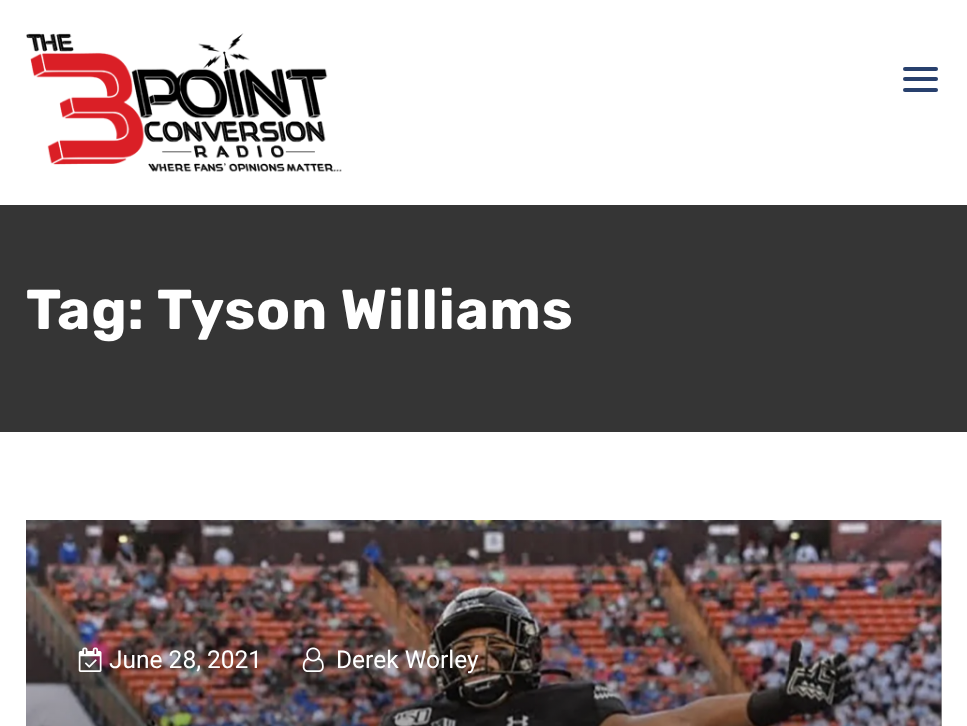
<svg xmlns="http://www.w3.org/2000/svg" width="967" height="726">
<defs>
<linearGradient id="g1" gradientUnits="userSpaceOnUse" x1="484" y1="520" x2="484" y2="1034"><stop offset="0" stop-color="#000" stop-opacity="0"/><stop offset="1" stop-color="#000" stop-opacity="0.8"/></linearGradient>
</defs>
<rect width="100%" height="100%" fill="#fff"/>
<image x="26" y="33" width="316" height="139" href="media/1.png"/>
<rect x="903" y="67" width="35" height="4" rx="2" fill="#28406d"/>
<rect x="903" y="77" width="35" height="4" rx="2" fill="#28406d"/>
<rect x="903" y="88" width="35" height="4" rx="2" fill="#28406d"/>
<rect y="205" width="967" height="227" fill="#353535"/>
<text x="26" y="329" style="font-family:Rubik;font-size:56px;font-weight:bold;letter-spacing:0.9px;fill:#fff">Tag:</text>
<text x="157" y="329" style="font-family:Rubik;font-size:56px;font-weight:bold;letter-spacing:0.9px;fill:#fff">Tyson Williams</text>
<image x="26" y="520" width="916" height="206" href="media/2.png"/>
<rect x="26" y="534" width="916" height="192" fill="url(#g1)"/>
<image x="78" y="647" width="24" height="25" href="media/3.png"/>
<text x="109" y="668" style="font-family:Roboto;font-size:24.5px;fill:#fff">June 28, 2021</text>
<image x="302" y="647" width="22" height="25" href="media/4.png"/>
<text x="336" y="668" style="font-family:Roboto;font-size:24.5px;fill:#fff">Derek Worley</text>
</svg>
